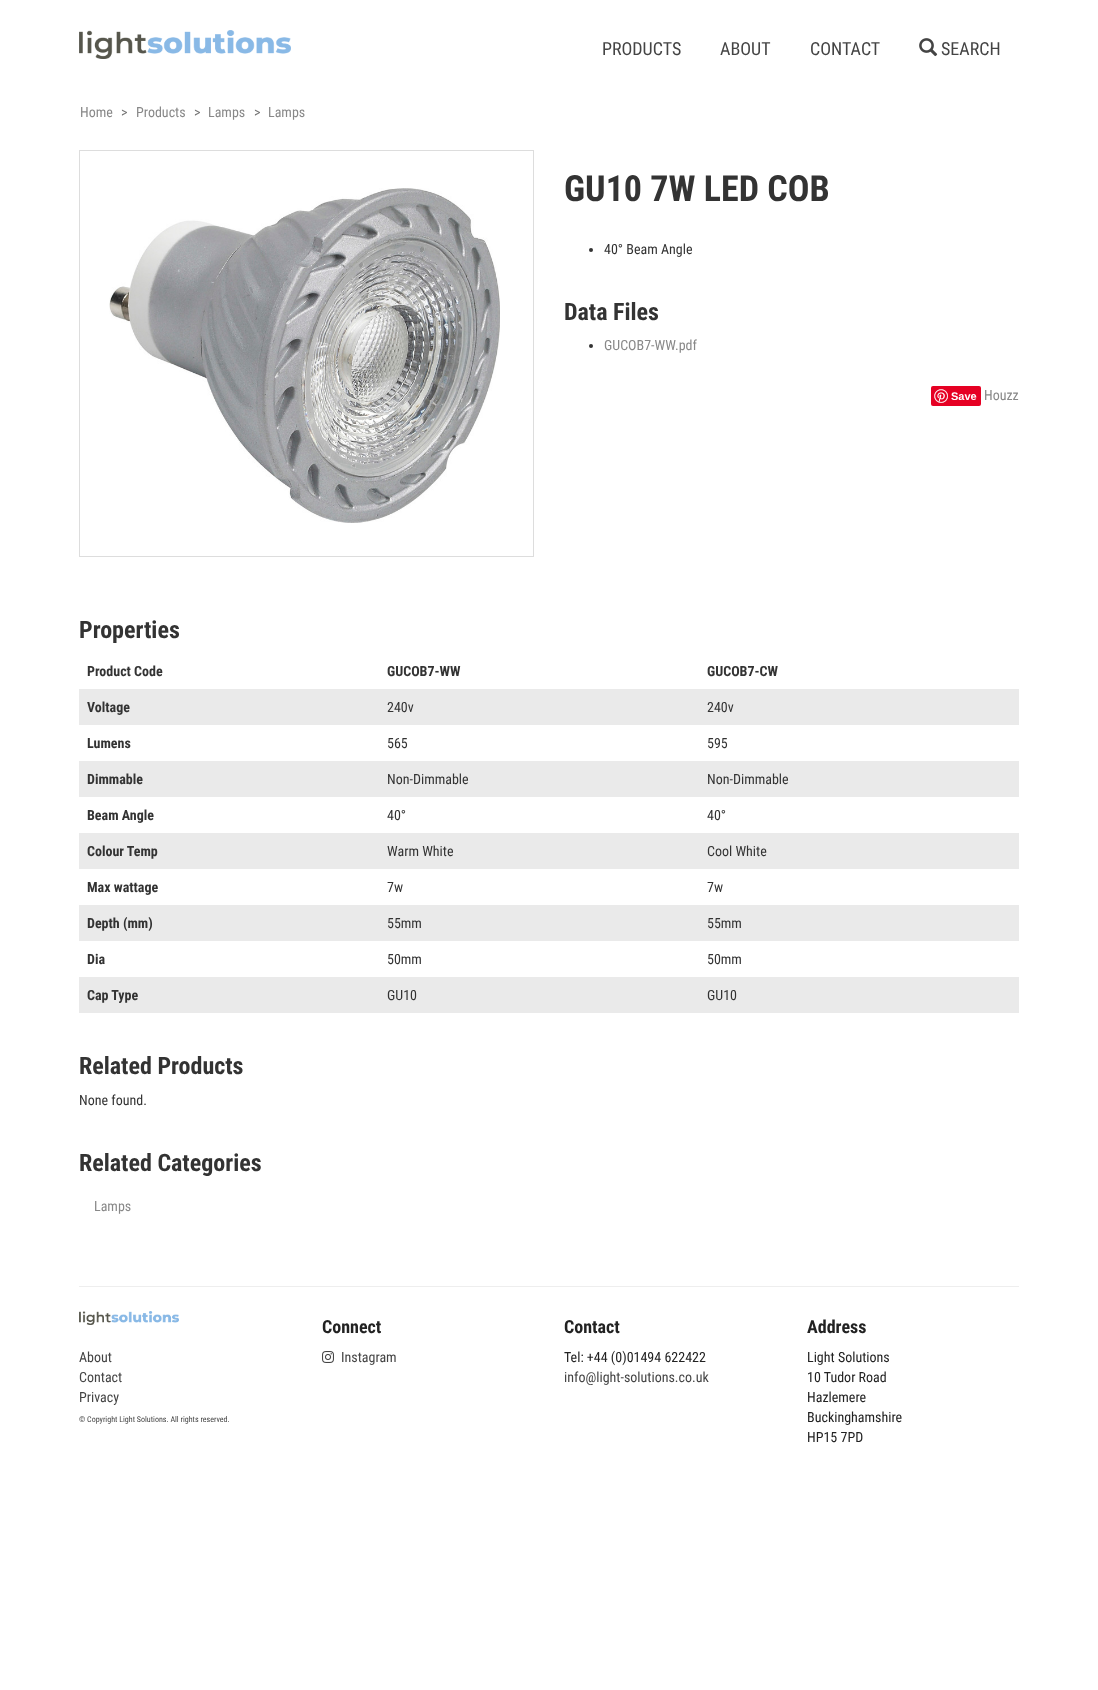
<svg xmlns="http://www.w3.org/2000/svg" width="1098" height="1690">
<rect width="100%" height="100%" fill="#fff"/>
<image x="79" y="30" width="212" height="29" href="media/1.png"/>
<text x="602" y="55" style="font-family:Roboto Condensed;font-size:18px;fill:#444">PRODUCTS</text>
<text x="720" y="55" style="font-family:Roboto Condensed;font-size:18px;fill:#444">ABOUT</text>
<text x="810" y="55" style="font-family:Roboto Condensed;font-size:18px;fill:#444">CONTACT</text>
<image x="919" y="38" width="19" height="19" href="media/2.png"/>
<text x="941" y="55" style="font-family:Roboto Condensed;font-size:18px;fill:#444">SEARCH</text>
<text x="80" y="117" style="font-family:Roboto Condensed;font-size:14px;fill:#888">Home</text>
<text x="121" y="117" style="font-family:Roboto Condensed;font-size:14px;fill:#777">&gt;</text>
<text x="136" y="117" style="font-family:Roboto Condensed;font-size:14px;fill:#888">Products</text>
<text x="194" y="117" style="font-family:Roboto Condensed;font-size:14px;fill:#777">&gt;</text>
<text x="208" y="117" style="font-family:Roboto Condensed;font-size:14px;fill:#888">Lamps</text>
<text x="254" y="117" style="font-family:Roboto Condensed;font-size:14px;fill:#777">&gt;</text>
<text x="268" y="117" style="font-family:Roboto Condensed;font-size:14px;fill:#888">Lamps</text>
<rect x="79.5" y="150.5" width="454" height="406" fill="none" stroke="#ddd"/>
<image x="109" y="188" width="391" height="335" href="media/3.png"/>
<text x="564" y="201" style="font-family:Roboto Condensed;font-size:36px;font-weight:bold;fill:#333">GU10 7W LED COB</text>
<circle cx="591" cy="250" r="2" fill="#333"/>
<text x="604" y="254" style="font-family:Roboto Condensed;font-size:14px;fill:#333">40° Beam Angle</text>
<text x="564" y="320" style="font-family:Roboto Condensed;font-size:24px;font-weight:bold;fill:#333">Data Files</text>
<circle cx="591" cy="346" r="2" fill="#333"/>
<text x="604" y="350" style="font-family:Roboto Condensed;font-size:14px;fill:#888">GUCOB7-WW.pdf</text>
<rect x="931" y="386" width="50" height="20" rx="2" fill="#e60023"/>
<image x="934" y="389" width="14" height="14" href="media/4.png"/>
<text x="951" y="400" style="font-family:Liberation Sans;font-size:11px;font-weight:bold;fill:#fff">Save</text>
<text x="984" y="400" style="font-family:Roboto Condensed;font-size:14px;fill:#888">Houzz</text>
<text x="79" y="638" style="font-family:Roboto Condensed;font-size:24px;font-weight:bold;fill:#333">Properties</text>
<text x="87" y="676" style="font-family:Roboto Condensed;font-size:14px;font-weight:bold;fill:#333">Product Code</text>
<text x="387" y="676" style="font-family:Roboto Condensed;font-size:14px;font-weight:bold;fill:#333">GUCOB7-WW</text>
<text x="707" y="676" style="font-family:Roboto Condensed;font-size:14px;font-weight:bold;fill:#333">GUCOB7-CW</text>
<rect x="79" y="689" width="940" height="36" fill="#eaeaea"/>
<text x="87" y="712" style="font-family:Roboto Condensed;font-size:14px;font-weight:bold;fill:#333">Voltage</text>
<text x="387" y="712" style="font-family:Roboto Condensed;font-size:14px;fill:#333">240v</text>
<text x="707" y="712" style="font-family:Roboto Condensed;font-size:14px;fill:#333">240v</text>
<text x="87" y="748" style="font-family:Roboto Condensed;font-size:14px;font-weight:bold;fill:#333">Lumens</text>
<text x="387" y="748" style="font-family:Roboto Condensed;font-size:14px;fill:#333">565</text>
<text x="707" y="748" style="font-family:Roboto Condensed;font-size:14px;fill:#333">595</text>
<rect x="79" y="761" width="940" height="36" fill="#eaeaea"/>
<text x="87" y="784" style="font-family:Roboto Condensed;font-size:14px;font-weight:bold;fill:#333">Dimmable</text>
<text x="387" y="784" style="font-family:Roboto Condensed;font-size:14px;fill:#333">Non-Dimmable</text>
<text x="707" y="784" style="font-family:Roboto Condensed;font-size:14px;fill:#333">Non-Dimmable</text>
<text x="87" y="820" style="font-family:Roboto Condensed;font-size:14px;font-weight:bold;fill:#333">Beam Angle</text>
<text x="387" y="820" style="font-family:Roboto Condensed;font-size:14px;fill:#333">40°</text>
<text x="707" y="820" style="font-family:Roboto Condensed;font-size:14px;fill:#333">40°</text>
<rect x="79" y="833" width="940" height="36" fill="#eaeaea"/>
<text x="87" y="856" style="font-family:Roboto Condensed;font-size:14px;font-weight:bold;fill:#333">Colour Temp</text>
<text x="387" y="856" style="font-family:Roboto Condensed;font-size:14px;fill:#333">Warm White</text>
<text x="707" y="856" style="font-family:Roboto Condensed;font-size:14px;fill:#333">Cool White</text>
<text x="87" y="892" style="font-family:Roboto Condensed;font-size:14px;font-weight:bold;fill:#333">Max wattage</text>
<text x="387" y="892" style="font-family:Roboto Condensed;font-size:14px;fill:#333">7w</text>
<text x="707" y="892" style="font-family:Roboto Condensed;font-size:14px;fill:#333">7w</text>
<rect x="79" y="905" width="940" height="36" fill="#eaeaea"/>
<text x="87" y="928" style="font-family:Roboto Condensed;font-size:14px;font-weight:bold;fill:#333">Depth (mm)</text>
<text x="387" y="928" style="font-family:Roboto Condensed;font-size:14px;fill:#333">55mm</text>
<text x="707" y="928" style="font-family:Roboto Condensed;font-size:14px;fill:#333">55mm</text>
<text x="87" y="964" style="font-family:Roboto Condensed;font-size:14px;font-weight:bold;fill:#333">Dia</text>
<text x="387" y="964" style="font-family:Roboto Condensed;font-size:14px;fill:#333">50mm</text>
<text x="707" y="964" style="font-family:Roboto Condensed;font-size:14px;fill:#333">50mm</text>
<rect x="79" y="977" width="940" height="36" fill="#eaeaea"/>
<text x="87" y="1000" style="font-family:Roboto Condensed;font-size:14px;font-weight:bold;fill:#333">Cap Type</text>
<text x="387" y="1000" style="font-family:Roboto Condensed;font-size:14px;fill:#333">GU10</text>
<text x="707" y="1000" style="font-family:Roboto Condensed;font-size:14px;fill:#333">GU10</text>
<text x="79" y="1074" style="font-family:Roboto Condensed;font-size:24px;font-weight:bold;fill:#333">Related Products</text>
<text x="79" y="1105" style="font-family:Roboto Condensed;font-size:14px;fill:#333">None found.</text>
<text x="79" y="1171" style="font-family:Roboto Condensed;font-size:24px;font-weight:bold;fill:#333">Related Categories</text>
<text x="94" y="1211" style="font-family:Roboto Condensed;font-size:14px;fill:#888">Lamps</text>
<rect x="79" y="1286" width="940" height="1" fill="#eee"/>
<image x="79" y="1311" width="100" height="14" href="media/5.png"/>
<text x="79" y="1362" style="font-family:Roboto Condensed;font-size:14px;fill:#444">About</text>
<text x="79" y="1382" style="font-family:Roboto Condensed;font-size:14px;fill:#444">Contact</text>
<text x="79" y="1402" style="font-family:Roboto Condensed;font-size:14px;fill:#444">Privacy</text>
<text x="79" y="1422" style="font-family:Roboto Condensed;font-size:8px;fill:#444">© Copyright Light Solutions. All rights reserved.</text>
<text x="322" y="1333" style="font-family:Roboto Condensed;font-size:18px;font-weight:bold;fill:#222">Connect</text>
<image x="322" y="1351" width="12" height="12" href="media/6.png"/>
<text x="341" y="1362" style="font-family:Roboto Condensed;font-size:14px;fill:#444">Instagram</text>
<text x="564" y="1333" style="font-family:Roboto Condensed;font-size:18px;font-weight:bold;fill:#222">Contact</text>
<text x="564" y="1362" style="font-family:Roboto Condensed;font-size:14px;fill:#222">Tel: +44 (0)01494 622422</text>
<text x="564" y="1382" style="font-family:Roboto Condensed;font-size:14px;fill:#444">info@light-solutions.co.uk</text>
<text x="807" y="1333" style="font-family:Roboto Condensed;font-size:18px;font-weight:bold;fill:#222">Address</text>
<text x="807" y="1362" style="font-family:Roboto Condensed;font-size:14px;fill:#222">Light Solutions</text>
<text x="807" y="1382" style="font-family:Roboto Condensed;font-size:14px;fill:#222">10 Tudor Road</text>
<text x="807" y="1402" style="font-family:Roboto Condensed;font-size:14px;fill:#222">Hazlemere</text>
<text x="807" y="1422" style="font-family:Roboto Condensed;font-size:14px;fill:#222">Buckinghamshire</text>
<text x="807" y="1442" style="font-family:Roboto Condensed;font-size:14px;fill:#222">HP15 7PD</text>
</svg>
